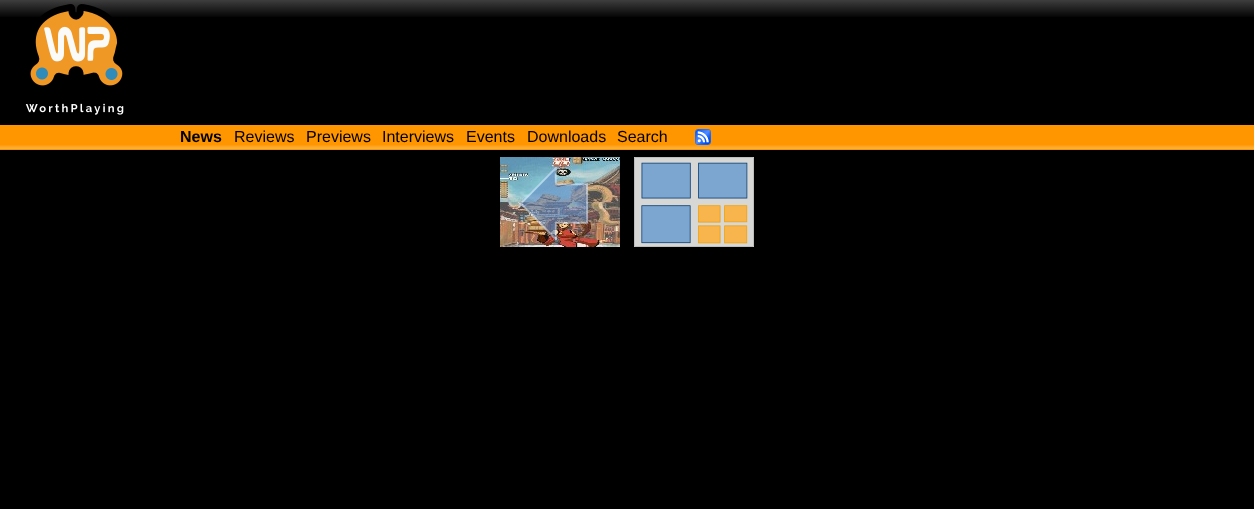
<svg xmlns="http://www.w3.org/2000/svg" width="1254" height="509">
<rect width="100%" height="100%" fill="#000"/>
<image x="0" y="0" width="1254" height="17" href="media/1.png"/>
<image x="25" y="4" width="99" height="111" href="media/2.png"/>
<rect y="125" width="1254" height="25" fill="#ff9600"/>
<image x="0" y="145" width="1254" height="4" href="media/3.png"/>
<text x="180" y="142" style="font-family:Liberation Sans;font-size:16px;font-weight:bold;fill:#000">News</text>
<text x="234" y="142" style="font-family:Liberation Sans;font-size:16px;fill:#000">Reviews</text>
<text x="306" y="142" style="font-family:Liberation Sans;font-size:16px;fill:#000">Previews</text>
<text x="382" y="142" style="font-family:Liberation Sans;font-size:16px;fill:#000">Interviews</text>
<text x="466" y="142" style="font-family:Liberation Sans;font-size:16px;fill:#000">Events</text>
<text x="527" y="142" style="font-family:Liberation Sans;font-size:16px;fill:#000">Downloads</text>
<text x="617" y="142" style="font-family:Liberation Sans;font-size:16px;fill:#000">Search</text>
<image x="695" y="129" width="16" height="16" href="media/4.png"/>
<image x="500" y="157" width="120" height="90" href="media/5.png"/>
<image x="520" y="167" width="68" height="73" href="media/6.png"/>
<image x="634" y="157" width="120" height="90" href="media/7.png"/>
</svg>
